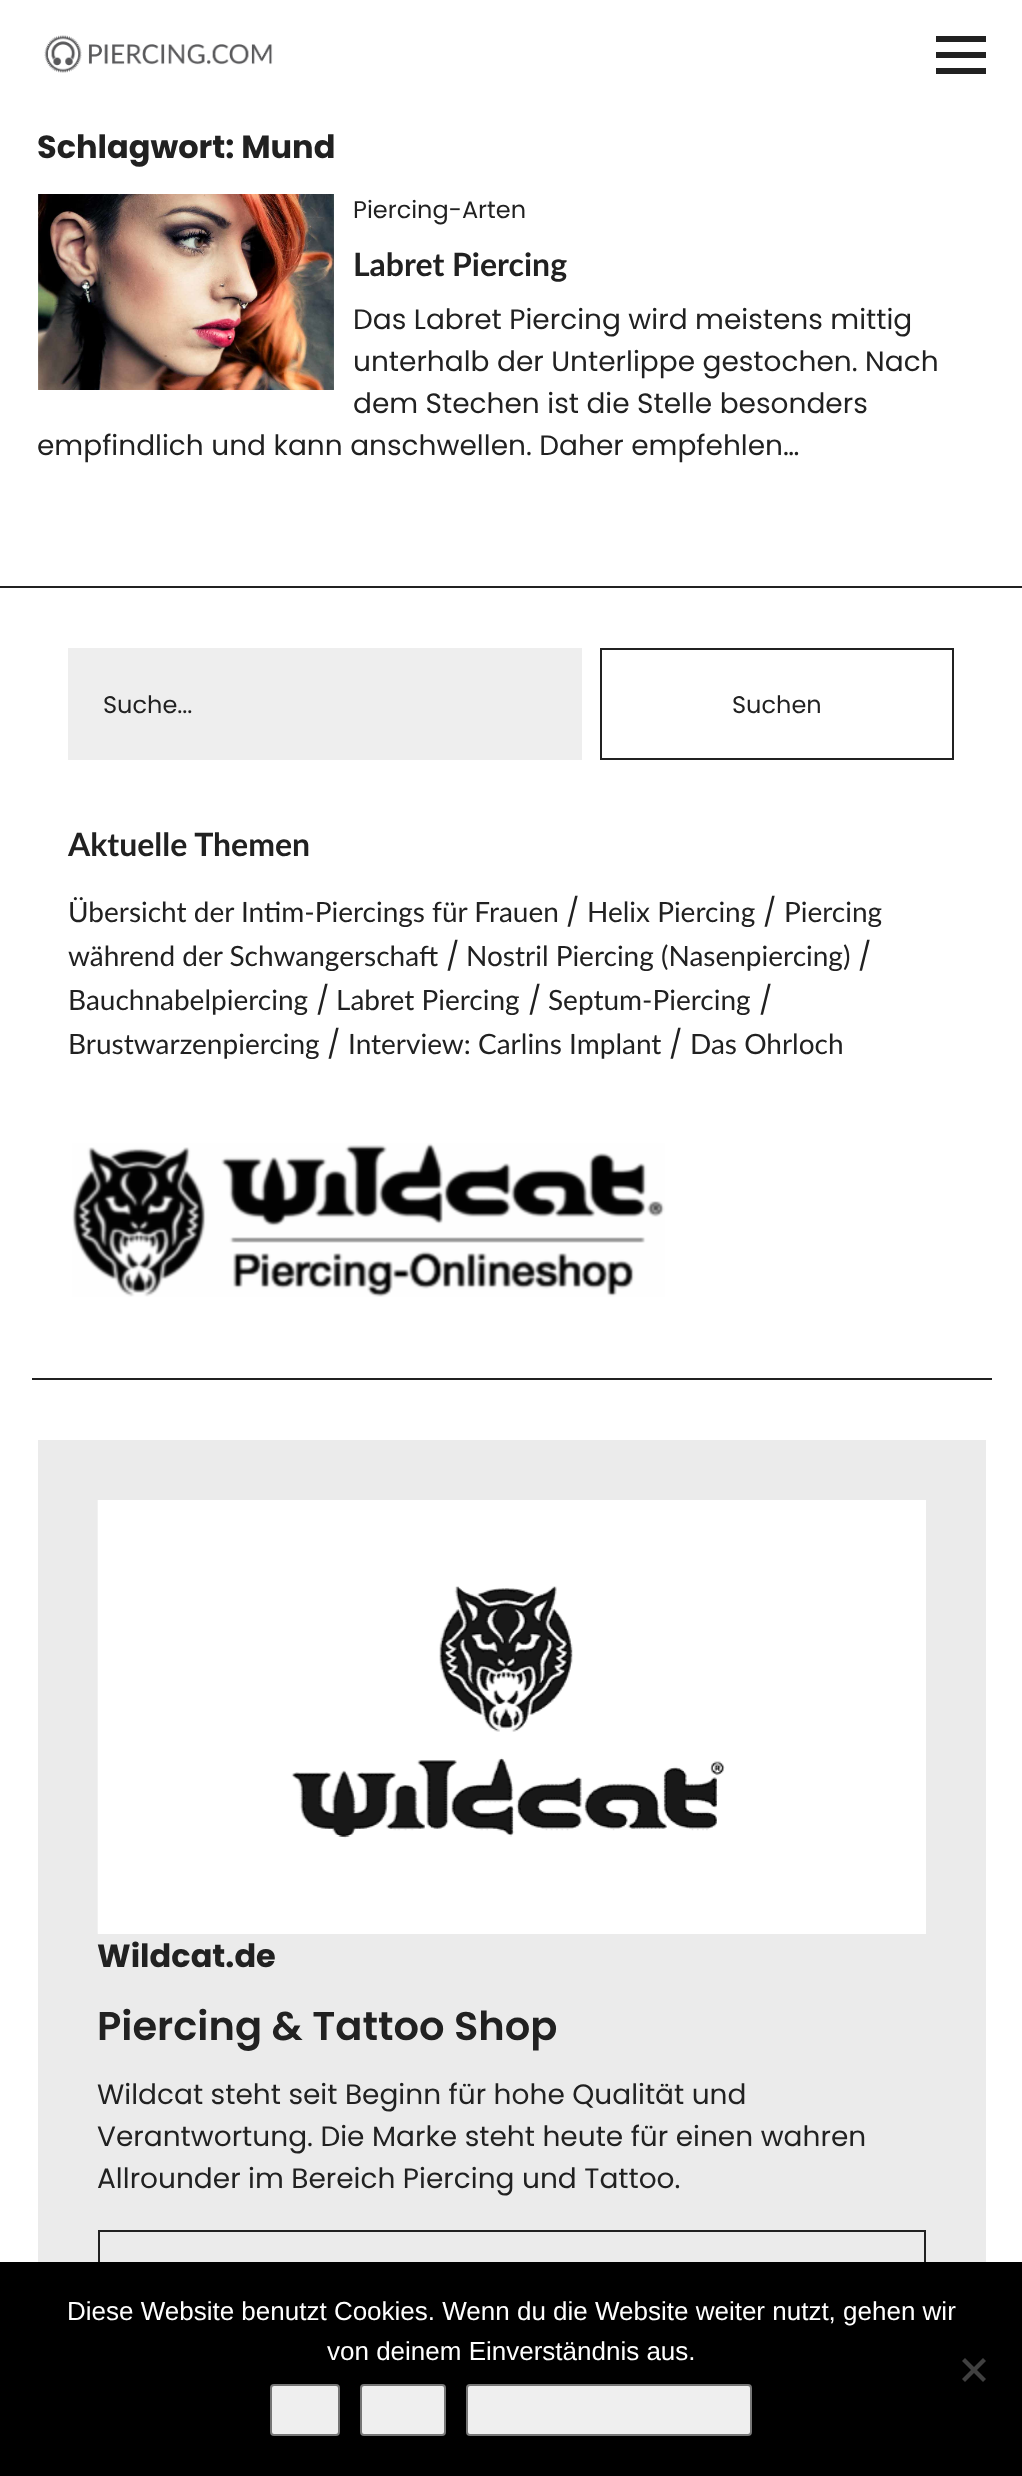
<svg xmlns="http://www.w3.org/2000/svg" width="1022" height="2476">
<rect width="100%" height="100%" fill="#fff"/>
<image x="44" y="35" width="229" height="38" href="media/1.png"/>
<path d="M936 74v-6h50v6zm0-38h50v6h-50zm0 22v-6h50v6z" fill="#212121"/>
<rect y="586" width="1022" height="2" fill="#212121"/>
<text x="37" y="158" style="font-family:Poppins;font-size:32px;font-weight:bold;fill:#212121">Schlagwort: Mund</text>
<image x="38" y="194" width="296" height="196" href="media/2.png"/>
<text x="353" y="218" style="font-family:Poppins;font-size:24px;fill:#212121">Piercing-Arten</text>
<text x="353" y="276" style="font-family:Lato;font-size:32px;font-weight:bold;fill:#212121">Labret Piercing</text>
<text x="353" y="329" style="font-family:Poppins;font-size:28px;fill:#212121">Das Labret Piercing wird meistens mittig</text>
<text x="353" y="371" style="font-family:Poppins;font-size:28px;fill:#212121">unterhalb der Unterlippe gestochen. Nach</text>
<text x="353" y="413" style="font-family:Poppins;font-size:28px;fill:#212121">dem Stechen ist die Stelle besonders</text>
<text x="37" y="455" style="font-family:Poppins;font-size:28px;fill:#212121">empfindlich und kann anschwellen. Daher empfehlen…</text>
<rect x="32" y="1378" width="960" height="2" fill="#212121"/>
<rect x="68" y="648" width="514" height="112" fill="#eee"/>
<text x="103" y="713" style="font-family:Poppins;font-size:24px;fill:#212121">Suche...</text>
<rect x="601" y="649" width="352" height="110" fill="none" stroke="#212121" stroke-width="2"/>
<text x="732" y="713" style="font-family:Poppins;font-size:24px;fill:#212121">Suchen</text>
<text x="68" y="856" style="font-family:Lato;font-size:32px;font-weight:bold;fill:#212121">Aktuelle Themen</text>
<text x="68" y="922" style="font-family:Lato;font-size:28px;fill:#212121">Übersicht der Intim-Piercings für Frauen</text>
<text x="566" y="922" style="font-family:Poppins;font-size:28px;fill:#212121">/</text>
<text x="587" y="922" style="font-family:Lato;font-size:28px;fill:#212121">Helix Piercing</text>
<text x="763" y="922" style="font-family:Poppins;font-size:28px;fill:#212121">/</text>
<text x="784" y="922" style="font-family:Lato;font-size:28px;fill:#212121">Piercing</text>
<text x="68" y="966" style="font-family:Lato;font-size:28px;fill:#212121">während der Schwangerschaft</text>
<text x="446" y="966" style="font-family:Poppins;font-size:28px;fill:#212121">/</text>
<text x="466" y="966" style="font-family:Lato;font-size:28px;fill:#212121">Nostril Piercing (Nasenpiercing)</text>
<text x="858" y="966" style="font-family:Poppins;font-size:28px;fill:#212121">/</text>
<text x="68" y="1010" style="font-family:Lato;font-size:28px;fill:#212121">Bauchnabelpiercing</text>
<text x="316" y="1010" style="font-family:Poppins;font-size:28px;fill:#212121">/</text>
<text x="336" y="1010" style="font-family:Lato;font-size:28px;fill:#212121">Labret Piercing</text>
<text x="528" y="1010" style="font-family:Poppins;font-size:28px;fill:#212121">/</text>
<text x="548" y="1010" style="font-family:Lato;font-size:28px;fill:#212121">Septum-Piercing</text>
<text x="759" y="1010" style="font-family:Poppins;font-size:28px;fill:#212121">/</text>
<text x="68" y="1054" style="font-family:Lato;font-size:28px;fill:#212121">Brustwarzenpiercing</text>
<text x="327" y="1054" style="font-family:Poppins;font-size:28px;fill:#212121">/</text>
<text x="348" y="1054" style="font-family:Lato;font-size:28px;fill:#212121">Interview: Carlins Implant</text>
<text x="669" y="1054" style="font-family:Poppins;font-size:28px;fill:#212121">/</text>
<text x="690" y="1054" style="font-family:Lato;font-size:28px;fill:#212121">Das Ohrloch</text>
<image x="72" y="1143" width="593" height="154" href="media/3.png"/>
<rect x="38" y="1440" width="948" height="822" fill="#ebebeb"/>
<rect x="98" y="1500" width="828" height="434" fill="#fff"/>
<image x="97" y="1500" width="628" height="434" href="media/4.png"/>
<text x="97" y="1967" style="font-family:Poppins;font-size:32px;font-weight:bold;fill:#212121">Wildcat.de</text>
<text x="97" y="2040" style="font-family:Poppins;font-size:40px;font-weight:600;fill:#212121">Piercing &amp; Tattoo Shop</text>
<text x="97" y="2104" style="font-family:Poppins;font-size:28px;fill:#212121">Wildcat steht seit Beginn für hohe Qualität und</text>
<text x="97" y="2146" style="font-family:Poppins;font-size:28px;fill:#212121">Verantwortung. Die Marke steht heute für einen wahren</text>
<text x="97" y="2188" style="font-family:Poppins;font-size:28px;fill:#212121">Allrounder im Bereich Piercing und Tattoo.</text>
<rect x="99" y="2231" width="826" height="128" fill="none" stroke="#212121" stroke-width="2"/>
<rect y="2262" width="1022" height="214" fill="#000"/>
<text x="67" y="2320" style="font-family:Liberation Sans;font-size:26px;fill:#fff">Diese Website benutzt Cookies. Wenn du die Website weiter nutzt, gehen wir</text>
<text x="327" y="2360" style="font-family:Liberation Sans;font-size:26px;fill:#fff">von deinem Einverständnis aus.</text>
<path d="M983 2358l3 3l-21 21l-3-3z" fill="#404040"/>
<path d="M962 2361l3-3l21 21l-3 3z" fill="#404040"/>
<rect x="271" y="2385" width="68" height="50" rx="3" fill="#efefef" stroke="#767676" stroke-width="2"/>
<rect x="361" y="2385" width="84" height="50" rx="3" fill="#efefef" stroke="#767676" stroke-width="2"/>
<rect x="467" y="2385" width="284" height="50" rx="3" fill="#efefef" stroke="#767676" stroke-width="2"/>
</svg>
